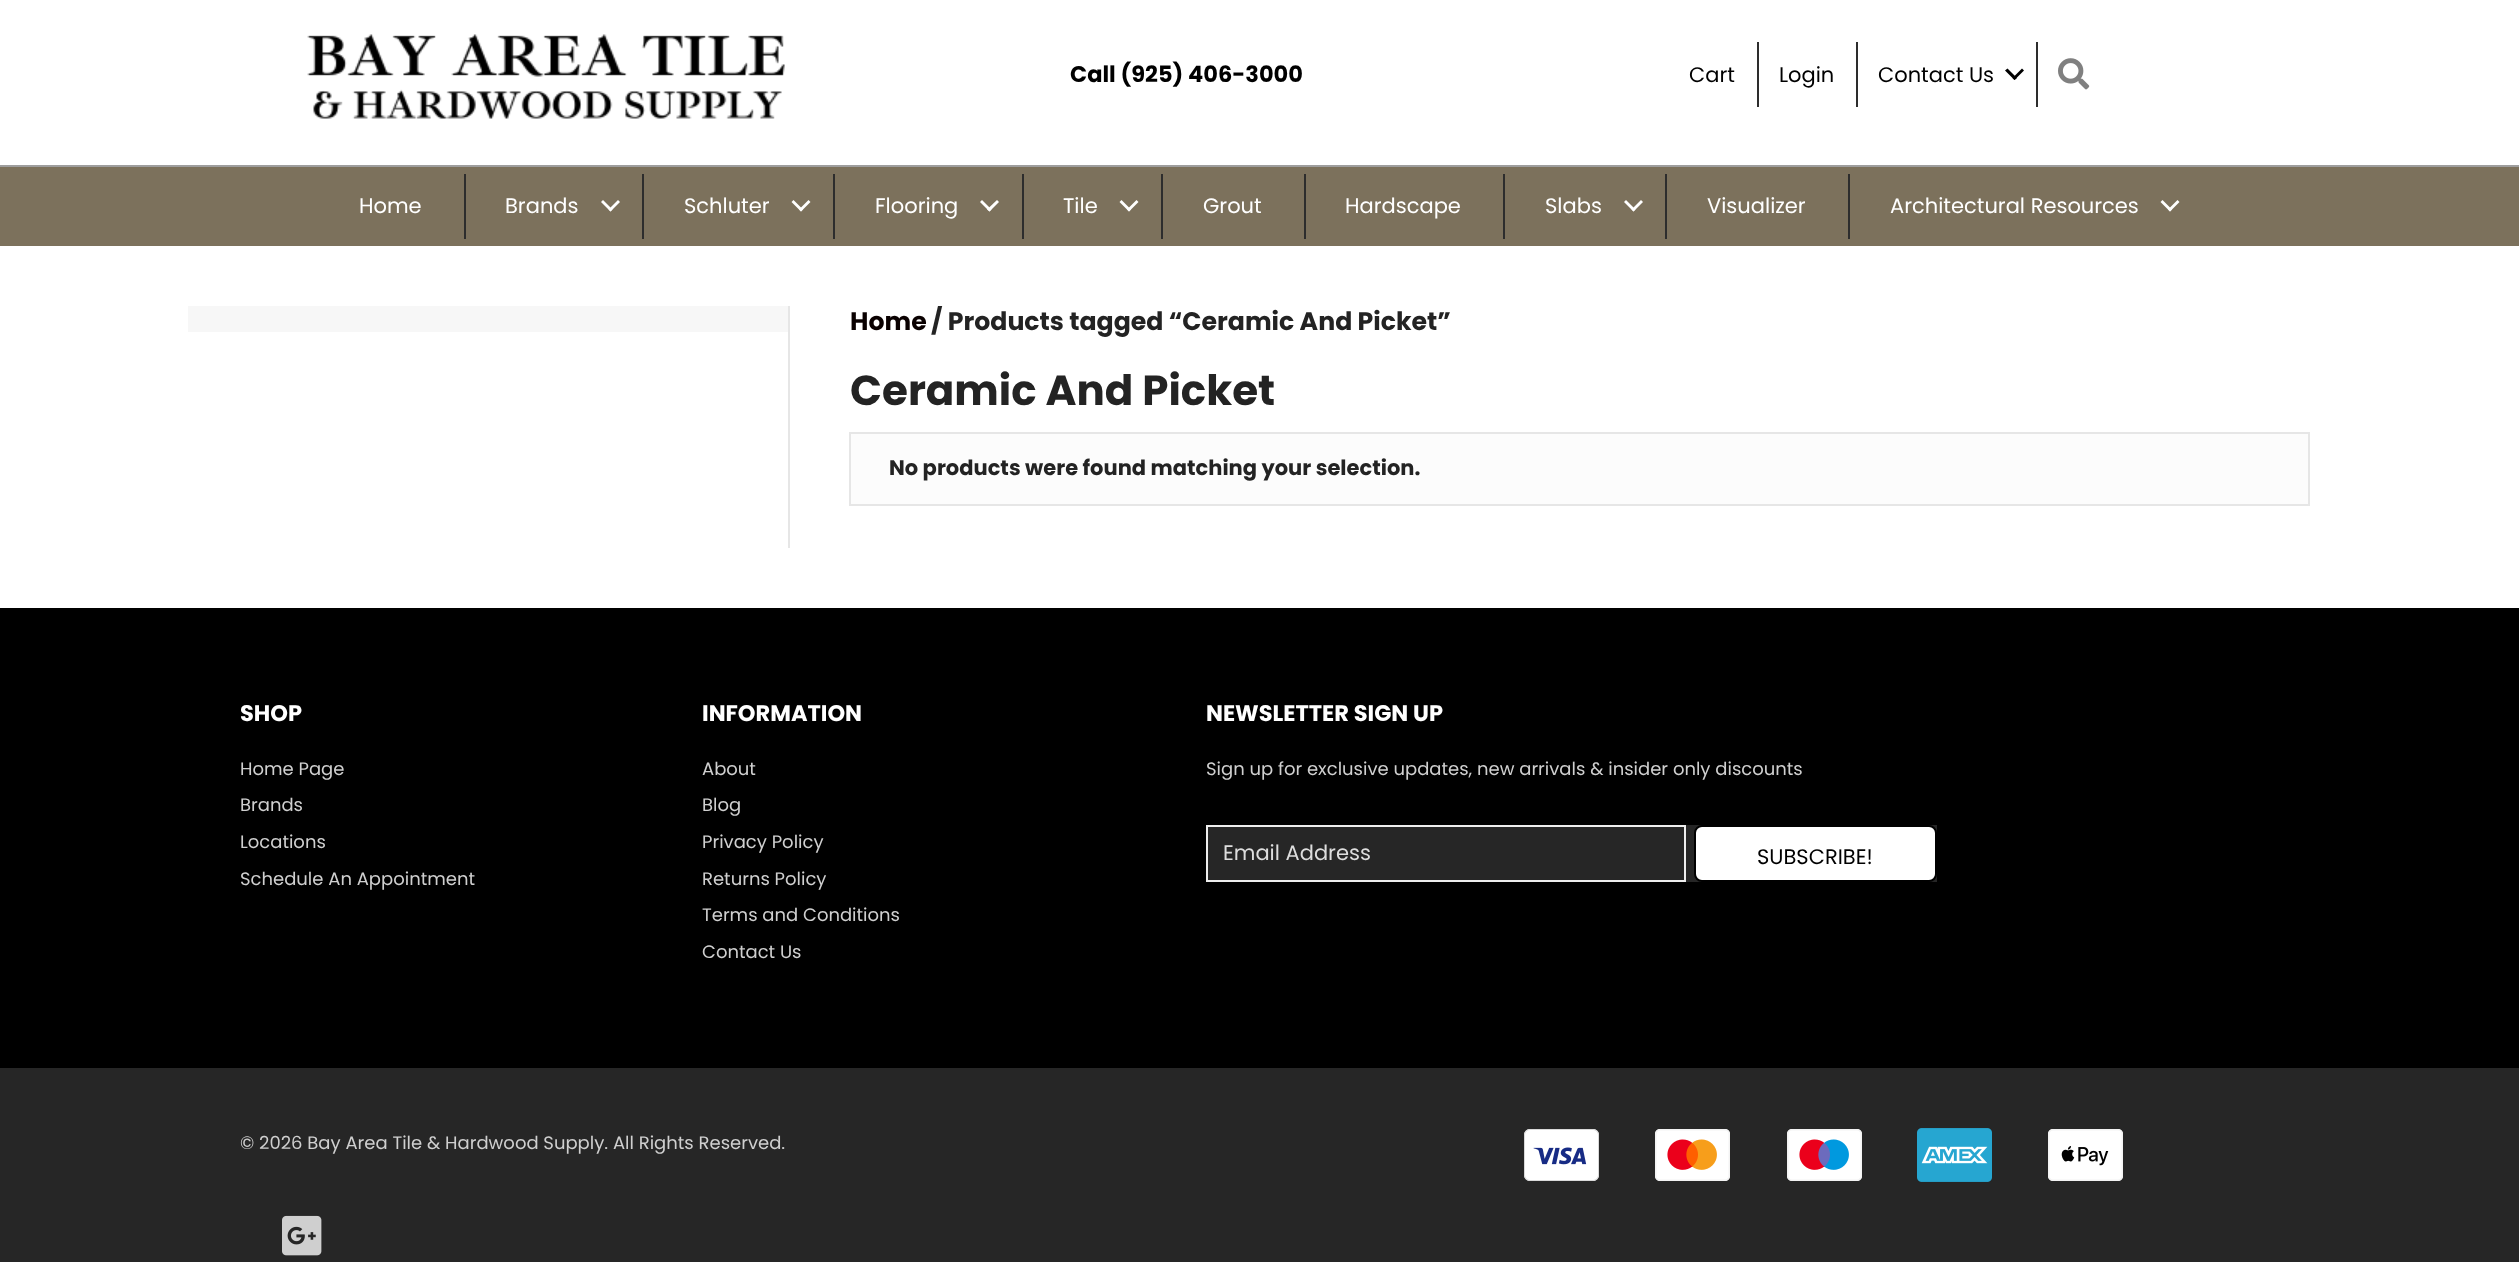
<svg xmlns="http://www.w3.org/2000/svg" width="2519" height="1262">
<rect width="100%" height="100%" fill="#fff"/>
<rect y="165" width="2519" height="2" fill="#9e9e9e"/>
<image x="307" y="34" width="478" height="85" href="media/1.png"/>
<text x="1070" y="82" style="font-family:Poppins;font-size:22.5px;font-weight:bold;fill:#000">Call (925) 406-3000</text>
<text x="1689" y="82" style="font-family:Poppins;font-size:21px;fill:#000">Cart</text>
<rect x="1757" y="42" width="2" height="65" fill="#2d2d2d"/>
<text x="1779" y="82" style="font-family:Poppins;font-size:21px;fill:#000">Login</text>
<rect x="2036" y="42" width="2" height="65" fill="#2d2d2d"/>
<rect x="1856" y="42" width="2" height="65" fill="#2d2d2d"/>
<text x="1878" y="82" style="font-family:Poppins;font-size:21px;fill:#000">Contact Us</text>
<path d="M2022 68.5l2 2l-9.5 9.5l-2-2z" fill="#000"/>
<path d="M2007.5 68.5l9.5 9.5l-2.5 2l-9.5-9.5z" fill="#000"/>
<image x="2058" y="58" width="32" height="32" href="media/2.png"/>
<rect y="167" width="2519" height="79" fill="#7c715c"/>
<text x="359" y="213" style="font-family:Poppins;font-size:21px;fill:#fff">Home</text>
<rect x="464" y="174" width="2" height="65" fill="#2d2d2d"/>
<text x="505" y="213" style="font-family:Poppins;font-size:21px;fill:#fff">Brands</text>
<path d="M618 200l2 2l-9.5 9.5l-2-2z" fill="#fff"/>
<path d="M603 200l9.5 9.5l-2 2l-9.5-9.5z" fill="#fff"/>
<rect x="642" y="174" width="2" height="65" fill="#2d2d2d"/>
<text x="684" y="213" style="font-family:Poppins;font-size:21px;fill:#fff">Schluter</text>
<path d="M808.5 200l2 2l-9.5 9.5l-2-2z" fill="#fff"/>
<path d="M793.5 200l9.5 9.5l-2 2l-9.5-9.5z" fill="#fff"/>
<rect x="833" y="174" width="2" height="65" fill="#2d2d2d"/>
<text x="875" y="213" style="font-family:Poppins;font-size:21px;fill:#fff">Flooring</text>
<path d="M997 200l2 2l-9.5 9.5l-2.5-2z" fill="#fff"/>
<path d="M982 200l9.5 9.5l-2 2l-9.5-9.5z" fill="#fff"/>
<rect x="1022" y="174" width="2" height="65" fill="#2d2d2d"/>
<text x="1063" y="213" style="font-family:Poppins;font-size:21px;fill:#fff">Tile</text>
<path d="M1136.5 200l2 2l-9.5 9.5l-2-2z" fill="#fff"/>
<path d="M1121.5 200l9.5 9.5l-2 2l-9.5-9.5z" fill="#fff"/>
<rect x="1161" y="174" width="2" height="65" fill="#2d2d2d"/>
<text x="1203" y="213" style="font-family:Poppins;font-size:21px;fill:#fff">Grout</text>
<rect x="1304" y="174" width="2" height="65" fill="#2d2d2d"/>
<text x="1345" y="213" style="font-family:Poppins;font-size:21px;fill:#fff">Hardscape</text>
<rect x="1503" y="174" width="2" height="65" fill="#2d2d2d"/>
<text x="1545" y="213" style="font-family:Poppins;font-size:21px;fill:#fff">Slabs</text>
<path d="M1641 200l2 2l-9.5 9.5l-2-2z" fill="#fff"/>
<path d="M1626 200l9.5 9.5l-2 2l-9.5-9.5z" fill="#fff"/>
<rect x="1665" y="174" width="2" height="65" fill="#2d2d2d"/>
<text x="1707" y="213" style="font-family:Poppins;font-size:21px;fill:#fff">Visualizer</text>
<rect x="1848" y="174" width="2" height="65" fill="#2d2d2d"/>
<text x="1890" y="213" style="font-family:Poppins;font-size:21px;fill:#fff">Architectural Resources</text>
<path d="M2177.5 200l2 2l-9.5 9.5l-2-2z" fill="#fff"/>
<path d="M2162.5 200l9.5 9.5l-2 2l-9.5-9.5z" fill="#fff"/>
<rect x="188" y="306" width="600" height="26" fill="#f7f7f7"/>
<rect x="788" y="306" width="2" height="242" fill="#e6e6e6"/>
<text x="850" y="330" style="font-family:Poppins;font-size:25.2px;font-weight:bold;fill:#0a0101">Home</text>
<text x="931" y="330" style="font-family:Poppins;font-size:25.2px;font-weight:bold;fill:#232323">/ Products tagged “Ceramic And Picket”</text>
<text x="850" y="405" style="font-family:Poppins;font-size:42px;font-weight:bold;fill:#232323">Ceramic And Picket</text>
<rect x="850" y="433" width="1459" height="72" fill="#fcfcfc" stroke="#e6e6e6" stroke-width="2"/>
<text x="889" y="475" style="font-family:Poppins;font-size:21px;font-weight:bold;fill:#232323">No products were found matching your selection.</text>
<rect y="608" width="2519" height="460" fill="#000"/>
<text x="240" y="721" style="font-family:Poppins;font-size:22.5px;font-weight:bold;fill:#fff">SHOP</text>
<text x="240" y="775" style="font-family:Poppins;font-size:18px;fill:#cfcfcf">Home Page</text>
<text x="240" y="811" style="font-family:Poppins;font-size:18px;fill:#cfcfcf">Brands</text>
<text x="240" y="848" style="font-family:Poppins;font-size:18px;fill:#cfcfcf">Locations</text>
<text x="240" y="885" style="font-family:Poppins;font-size:18px;fill:#cfcfcf">Schedule An Appointment</text>
<text x="702" y="721" style="font-family:Poppins;font-size:22.5px;font-weight:bold;fill:#fff">INFORMATION</text>
<text x="702" y="775" style="font-family:Poppins;font-size:18px;fill:#cfcfcf">About</text>
<text x="702" y="811" style="font-family:Poppins;font-size:18px;fill:#cfcfcf">Blog</text>
<text x="702" y="848" style="font-family:Poppins;font-size:18px;fill:#cfcfcf">Privacy Policy</text>
<text x="702" y="885" style="font-family:Poppins;font-size:18px;fill:#cfcfcf">Returns Policy</text>
<text x="702" y="921" style="font-family:Poppins;font-size:18px;fill:#cfcfcf">Terms and Conditions</text>
<text x="702" y="958" style="font-family:Poppins;font-size:18px;fill:#cfcfcf">Contact Us</text>
<text x="1206" y="721" style="font-family:Poppins;font-size:22.5px;font-weight:bold;fill:#fff">NEWSLETTER SIGN UP</text>
<text x="1206" y="775" style="font-family:Poppins;font-size:18px;fill:#cfcfcf">Sign up for exclusive updates, new arrivals &amp; insider only discounts</text>
<rect x="1208" y="825" width="729" height="57" fill="#262626"/>
<rect x="1207" y="826" width="478" height="55" fill="none" stroke="#eee" stroke-width="2"/>
<text x="1223" y="860" style="font-family:Poppins;font-size:21px;fill:#ddd">Email Address</text>
<rect x="1695" y="826" width="241" height="55" rx="7" fill="#fff" stroke="#000" stroke-width="2"/>
<text x="1757" y="864" style="font-family:Poppins;font-size:21px;fill:#000">SUBSCRIBE!</text>
<rect y="1068" width="2519" height="194" fill="#262626"/>
<text x="240" y="1149" style="font-family:Poppins;font-size:18px;fill:#cfcfcf">© 2026 Bay Area Tile &amp; Hardwood Supply. All Rights Reserved.</text>
<image x="282" y="1215" width="40" height="41" href="media/3.png"/>
<image x="1524" y="1129" width="75" height="52" href="media/4.png"/>
<image x="1655" y="1129" width="75" height="52" href="media/5.png"/>
<image x="1787" y="1129" width="75" height="52" href="media/6.png"/>
<image x="1917" y="1128" width="75" height="54" href="media/7.png"/>
<image x="2048" y="1129" width="75" height="52" href="media/8.png"/>
</svg>
